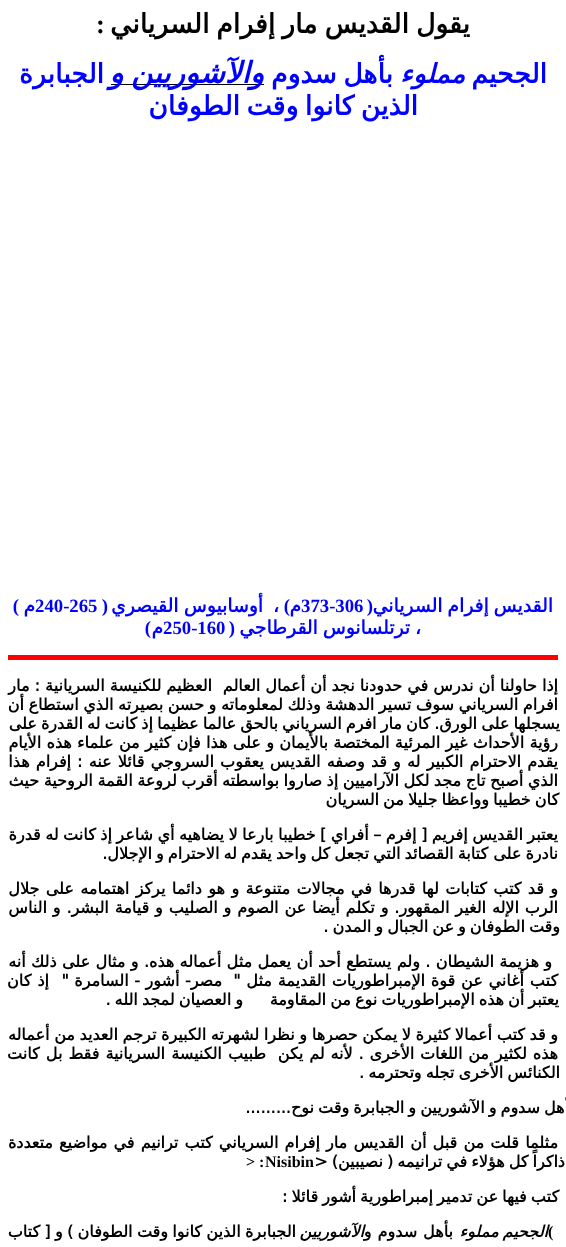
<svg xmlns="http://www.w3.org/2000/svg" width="566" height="1247">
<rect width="100%" height="100%" fill="#fff"/>
<text x="470" y="33" word-spacing="-1.5" style="font-family:DejaVu Sans;font-size:26.7px;font-weight:bold;direction:rtl;fill:#000">يقول القديس مار إفرام السرياني</text>
<text x="105" y="33" style="font-family:Liberation Serif;font-size:26.7px;font-weight:bold;direction:rtl;fill:#000">:</text>
<text x="547" y="83" style="font-family:DejaVu Sans;font-size:26.7px;font-weight:bold;direction:rtl;fill:#00f">الجحيم</text>
<text x="465" y="83" style="font-family:DejaVu Sans;font-size:26.7px;font-weight:bold;font-style:italic;direction:rtl;fill:#00f">مملوء</text>
<text x="393" y="83" word-spacing="-2" style="font-family:DejaVu Sans;font-size:26.7px;font-weight:bold;direction:rtl;fill:#00f">بأهل سدوم</text>
<rect x="111" y="84" width="153" height="1" fill="#000"/>
<text x="264" y="83" word-spacing="-2" style="font-family:DejaVu Sans;font-size:29.5px;font-weight:bold;font-style:italic;direction:rtl;fill:#00f">والآشوريين و</text>
<text x="104" y="83" style="font-family:DejaVu Sans;font-size:26.7px;font-weight:bold;direction:rtl;fill:#00f">الجبابرة</text>
<text x="418" y="115" word-spacing="-2" style="font-family:DejaVu Sans;font-size:26.7px;font-weight:bold;direction:rtl;fill:#00f">الذين كانوا وقت الطوفان</text>
<text x="553" y="612" word-spacing="-1" style="font-family:DejaVu Sans;font-size:18.75px;font-weight:bold;direction:rtl;fill:#00f">القديس إفرام السرياني</text>
<text x="373" y="612" style="font-family:Liberation Serif;font-size:18.75px;font-weight:bold;direction:rtl;fill:#00f">(</text>
<text x="301" y="612" style="font-family:Liberation Serif;font-size:18.75px;font-weight:bold;fill:#00f">373-306</text>
<text x="301" y="612" style="font-family:DejaVu Sans;font-size:18.75px;font-weight:bold;direction:rtl;fill:#00f">م</text>
<text x="290" y="612" style="font-family:Liberation Serif;font-size:18.75px;font-weight:bold;direction:rtl;fill:#00f">)</text>
<text x="279" y="612" style="font-family:DejaVu Sans;font-size:18.75px;font-weight:bold;direction:rtl;fill:#00f">،</text>
<text x="263" y="612" word-spacing="-0.5" style="font-family:DejaVu Sans;font-size:18.75px;font-weight:bold;direction:rtl;fill:#00f">أوسابيوس القيصري</text>
<text x="108" y="612" style="font-family:Liberation Serif;font-size:18.75px;font-weight:bold;direction:rtl;fill:#00f">(</text>
<text x="35" y="612" style="font-family:Liberation Serif;font-size:18.75px;font-weight:bold;fill:#00f">240-265</text>
<text x="35" y="612" style="font-family:DejaVu Sans;font-size:18.75px;font-weight:bold;direction:rtl;fill:#00f">م</text>
<text x="19" y="612" style="font-family:Liberation Serif;font-size:18.75px;font-weight:bold;direction:rtl;fill:#00f">)</text>
<text x="421" y="634" word-spacing="-1" style="font-family:DejaVu Sans;font-size:18.75px;font-weight:bold;direction:rtl;fill:#00f">، ترتلسانوس القرطاجي</text>
<text x="235" y="634" style="font-family:Liberation Serif;font-size:18.75px;font-weight:bold;direction:rtl;fill:#00f">(</text>
<text x="163" y="634" style="font-family:Liberation Serif;font-size:18.75px;font-weight:bold;fill:#00f">250-160</text>
<text x="163" y="634" style="font-family:DejaVu Sans;font-size:18.75px;font-weight:bold;direction:rtl;fill:#00f">م</text>
<text x="151" y="634" style="font-family:Liberation Serif;font-size:18.75px;font-weight:bold;direction:rtl;fill:#00f">)</text>
<rect x="8" y="655" width="550" height="5" fill="#f00"/>
<text x="558" y="691" style="font-family:DejaVu Sans;font-size:16px;font-weight:bold;direction:rtl;fill:#000">إذا حاولنا أن ندرس في حدودنا نجد أن أعمال العالم</text>
<text x="212" y="691" style="font-family:DejaVu Sans;font-size:16px;font-weight:bold;direction:rtl;fill:#000">العظيم للكنيسة السريانية : مار</text>
<text x="558" y="710" word-spacing="-0.5" style="font-family:DejaVu Sans;font-size:16px;font-weight:bold;direction:rtl;fill:#000">افرام السرياني سوف تسير الدهشة وذلك لمعلوماته و حسن بصيرته الذي استطاع أن</text>
<text x="560" y="729" word-spacing="-1" style="font-family:DejaVu Sans;font-size:16px;font-weight:bold;direction:rtl;fill:#000">يسجلها على الورق. كان مار افرم السرياني بالحق عالما عظيما إذ كانت له القدرة على</text>
<text x="558" y="748" word-spacing="0.25" style="font-family:DejaVu Sans;font-size:16px;font-weight:bold;direction:rtl;fill:#000">رؤية الأحداث غير المرئية المختصة بالأيمان و على هذا فإن كثير من علماء هذه الأيام</text>
<text x="558" y="767" word-spacing="1.1" style="font-family:DejaVu Sans;font-size:16px;font-weight:bold;direction:rtl;fill:#000">يقدم الاحترام الكبير له و قد وصفه القديس يعقوب السروجي قائلا عنه :</text>
<text x="71" y="767" word-spacing="1" style="font-family:DejaVu Sans;font-size:16px;font-weight:bold;direction:rtl;fill:#000">إفرام هذا</text>
<text x="558" y="786" word-spacing="-0.5" style="font-family:DejaVu Sans;font-size:16px;font-weight:bold;direction:rtl;fill:#000">الذي أصبح تاج مجد لكل الآراميين إذ صاروا بواسطته أقرب لروعة القمة الروحية حيث</text>
<text x="559" y="805" word-spacing="-1" style="font-family:DejaVu Sans;font-size:16px;font-weight:bold;direction:rtl;fill:#000">كان خطيبا وواعظا جليلا من السريان</text>
<text x="558" y="840" word-spacing="-0.6" style="font-family:DejaVu Sans;font-size:16px;font-weight:bold;direction:rtl;fill:#000">يعتبر القديس إفريم [ إفرم – أفراي ] خطيبا بارعا لا يضاهيه أي شاعر إذ كانت له قدرة</text>
<text x="558" y="859" word-spacing="-1" style="font-family:DejaVu Sans;font-size:16px;font-weight:bold;direction:rtl;fill:#000">نادرة على</text>
<text x="488" y="859" word-spacing="-1" style="font-family:DejaVu Sans;font-size:16px;font-weight:bold;direction:rtl;fill:#000">كتابة القصائد التي تجعل كل واحد يقدم له الاحترام و الإجلال.</text>
<text x="558" y="894" word-spacing="1.3" style="font-family:DejaVu Sans;font-size:16px;font-weight:bold;direction:rtl;fill:#000">و قد كتب كتابات لها قدرها في مجالات متنوعة و هو دائما يركز اهتمامه على جلال</text>
<text x="558" y="913" word-spacing="0.8" style="font-family:DejaVu Sans;font-size:16px;font-weight:bold;direction:rtl;fill:#000">الرب الإله الغير المقهور. و تكلم أيضا عن الصوم و الصليب و قيامة البشر. و الناس</text>
<text x="560" y="932" word-spacing="-1" style="font-family:DejaVu Sans;font-size:16px;font-weight:bold;direction:rtl;fill:#000">وقت الطوفان و عن الجبال و المدن .</text>
<text x="552" y="967" word-spacing="0.3" style="font-family:DejaVu Sans;font-size:16px;font-weight:bold;direction:rtl;fill:#000">و هزيمة الشيطان . ولم يستطع أحد أن يعمل مثل أعماله هذه. و مثال على ذلك أنه</text>
<text x="558" y="986" word-spacing="0.75" style="font-family:DejaVu Sans;font-size:16px;font-weight:bold;direction:rtl;fill:#000">كتب أغاني عن قوة الإمبراطوريات القديمة مثل "</text>
<text x="222" y="986" word-spacing="0.5" style="font-family:DejaVu Sans;font-size:16px;font-weight:bold;direction:rtl;fill:#000">مصر- أشور - السامرة "</text>
<text x="49" y="986" word-spacing="1" style="font-family:DejaVu Sans;font-size:16px;font-weight:bold;direction:rtl;fill:#000">إذ كان</text>
<text x="559" y="1005" word-spacing="-1" style="font-family:DejaVu Sans;font-size:16px;font-weight:bold;direction:rtl;fill:#000">يعتبر أن هذه الإمبراطوريات نوع من المقاومة</text>
<text x="243" y="1005" word-spacing="-1" style="font-family:DejaVu Sans;font-size:16px;font-weight:bold;direction:rtl;fill:#000">و العصيان لمجد الله .</text>
<text x="558" y="1040" word-spacing="-0.4" style="font-family:DejaVu Sans;font-size:16px;font-weight:bold;direction:rtl;fill:#000">و قد كتب أعمالا كثيرة لا يمكن حصرها و نظرا لشهرته الكبيرة ترجم العديد من أعماله</text>
<text x="558" y="1059" word-spacing="0.75" style="font-family:DejaVu Sans;font-size:16px;font-weight:bold;direction:rtl;fill:#000">هذه لكثير من اللغات الأخرى . لأنه لم يكن</text>
<text x="266" y="1059" word-spacing="1" style="font-family:DejaVu Sans;font-size:16px;font-weight:bold;direction:rtl;fill:#000">طبيب الكنيسة السريانية فقط بل كانت</text>
<text x="560" y="1078" word-spacing="-1" style="font-family:DejaVu Sans;font-size:16px;font-weight:bold;direction:rtl;fill:#000">الكنائس الأخرى تجله وتحترمه .</text>
<text x="569" y="1113" word-spacing="-1" style="font-family:DejaVu Sans;font-size:16px;font-weight:bold;direction:rtl;fill:#000">أهل سدوم و الآشوريين و الجبابرة وقت نوح.........</text>
<text x="558" y="1148" word-spacing="1.1" style="font-family:DejaVu Sans;font-size:16px;font-weight:bold;direction:rtl;fill:#000">مثلما قلت من قبل أن القديس مار إفرام السرياني كتب ترانيم في مواضيع متعددة</text>
<text x="565" y="1167" word-spacing="-1" style="font-family:DejaVu Sans;font-size:16px;font-weight:bold;direction:rtl;fill:#000">ذاكراً كل هؤلاء في ترانيمه ( نصيبين) &lt;</text>
<text x="265" y="1167" style="font-family:Liberation Serif;font-size:16px;font-weight:bold;fill:#000">Nisibin</text>
<text x="246" y="1167" style="font-family:Liberation Serif;font-size:16px;font-weight:bold;fill:#000">&gt; :</text>
<text x="559" y="1202" word-spacing="-1" style="font-family:DejaVu Sans;font-size:16px;font-weight:bold;direction:rtl;fill:#000">كتب فيها عن تدمير إمبراطورية أشور قائلا :</text>
<text x="548" y="1237" style="font-family:Liberation Serif;font-size:16px;font-weight:bold;fill:#000">(</text>
<text x="548" y="1237" word-spacing="-1" style="font-family:DejaVu Sans;font-size:16px;font-weight:bold;font-style:italic;direction:rtl;fill:#000">الجحيم مملوء</text>
<text x="453" y="1237" word-spacing="1" style="font-family:DejaVu Sans;font-size:16px;font-weight:bold;direction:rtl;fill:#000">بأهل سدوم و</text>
<text x="364" y="1237" style="font-family:DejaVu Sans;font-size:16px;font-weight:bold;font-style:italic;direction:rtl;fill:#000">الآشوريين</text>
<text x="296" y="1237" word-spacing="-0.75" style="font-family:DejaVu Sans;font-size:16px;font-weight:bold;direction:rtl;fill:#000">الجبابرة الذين كانوا وقت الطوفان ) و [ كتاب</text>
</svg>
